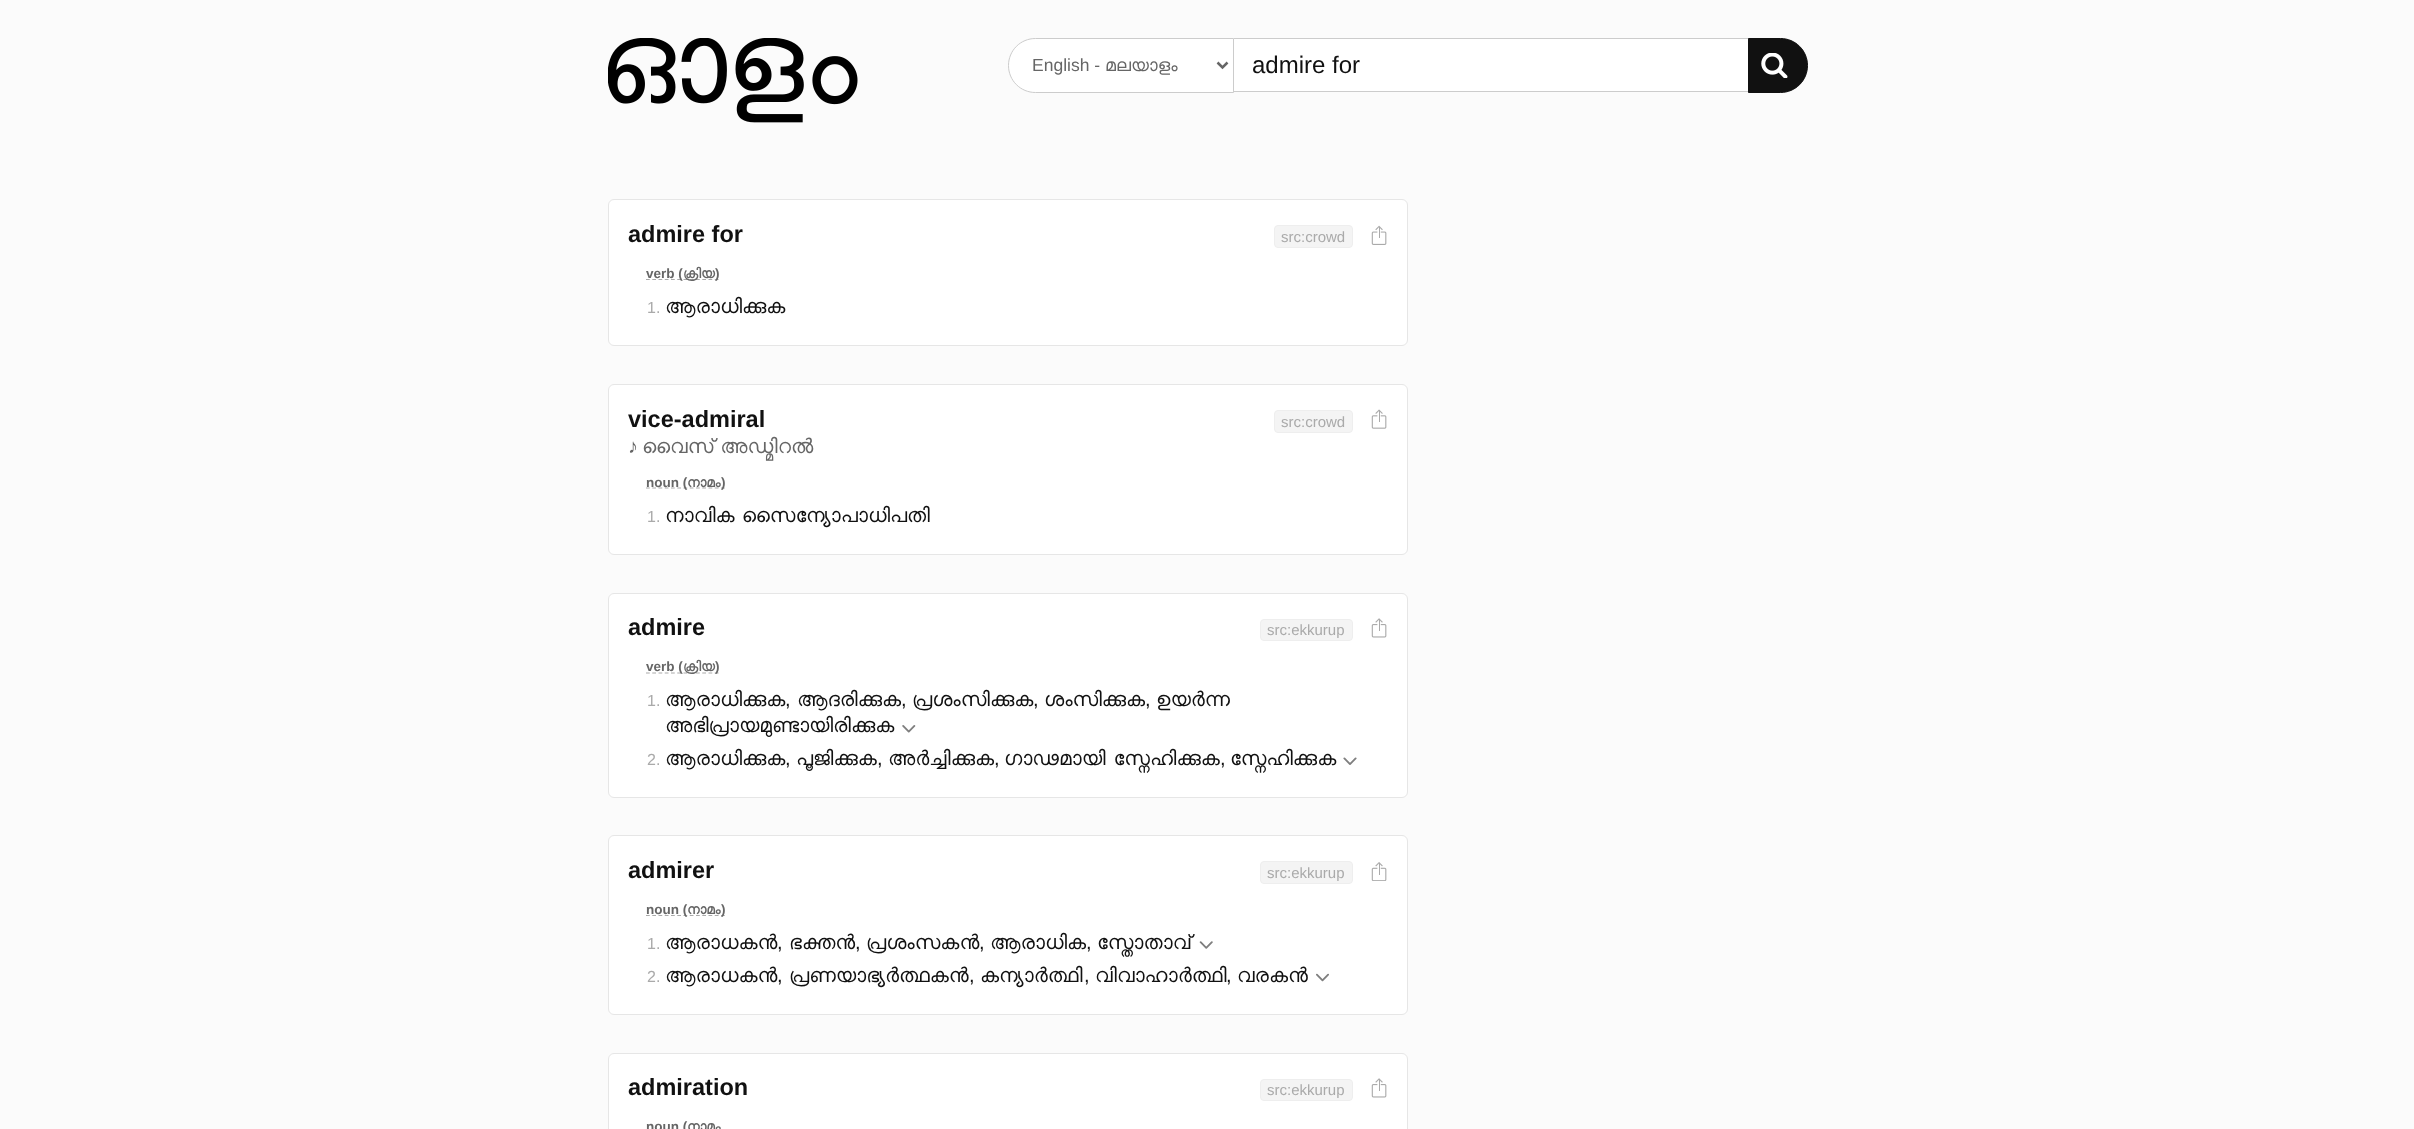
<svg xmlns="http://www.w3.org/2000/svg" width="2414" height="1129">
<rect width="100%" height="100%" fill="#fbfbfb"/>
<image x="608" y="38" width="250" height="85" href="media/1.png"/>
<path d="M1035.5 38.5h198v54h-198c-15 0-27-12-27-27c0-15 12-27 27-27z" fill="#fff" stroke="#ccc"/>
<path d="M1217.5 62.5l5 5l5-5" fill="none" stroke="#666" stroke-width="2.5"/>
<text x="1032" y="71" style="font-family:Liberation Sans;font-size:17.5px;fill:#666">English -</text>
<text x="1105" y="71" style="font-family:FreeSans;font-size:17.5px;fill:#666">മലയാളം</text>
<rect x="1234" y="39" width="514" height="52" fill="#fff"/>
<rect x="1234" y="38" width="514" height="1" fill="#ccc"/>
<rect x="1234" y="91" width="514" height="1" fill="#ccc"/>
<text x="1252" y="73" style="font-family:Liberation Sans;font-size:24px;fill:#111">admire for</text>
<path d="M1748.5 38.5h32c15 0 27 12 27 27c0 15-12 27-27 27h-32z" fill="#111" stroke="#111"/>
<image x="1761" y="53" width="27" height="25" href="media/2.png"/>
<rect x="608.5" y="199.5" width="799" height="146" rx="5.5" fill="#fff" stroke="#e6e6e6"/>
<text x="628" y="242" style="font-family:Liberation Sans;font-size:23.5px;font-weight:bold;fill:#111">admire for</text>
<rect x="1274.5" y="225.5" width="78" height="22" rx="3.5" fill="#f4f4f4" stroke="#eee"/>
<text x="1281" y="242" style="font-family:Liberation Sans;font-size:15px;fill:#aaa">src:crowd</text>
<image x="1371" y="225" width="16" height="20" href="media/3.png"/>
<path d="M646 279.5h73" fill="none" stroke="#aaa" stroke-width="1.2" stroke-dasharray="3.75 2.5"/>
<text x="646" y="278" style="font-family:Liberation Sans;font-size:13.5px;font-weight:bold;fill:#666">verb (</text>
<text x="683" y="278" style="font-family:FreeSans;font-size:13.5px;font-weight:bold;fill:#666">ക്രിയ</text>
<text x="715" y="278" style="font-family:Liberation Sans;font-size:13.5px;font-weight:bold;fill:#666">)</text>
<text x="647" y="313" style="font-family:Liberation Sans;font-size:16px;fill:#aaa">1.</text>
<text x="665" y="313" style="font-family:FreeSans;font-size:20px;fill:#111">ആരാധിക്കുക</text>
<rect x="608.5" y="384.5" width="799" height="170" rx="5.5" fill="#fff" stroke="#e6e6e6"/>
<text x="628" y="427" style="font-family:Liberation Sans;font-size:23.5px;font-weight:bold;fill:#111">vice-admiral</text>
<text x="628" y="453" style="font-family:Liberation Sans;font-size:20px;fill:#666">♪</text>
<text x="642" y="453" word-spacing="-1" style="font-family:FreeSans;font-size:20px;fill:#666">വൈസ് അഡ്മിറൽ</text>
<rect x="1274.5" y="410.5" width="78" height="22" rx="3.5" fill="#f4f4f4" stroke="#eee"/>
<text x="1281" y="427" style="font-family:Liberation Sans;font-size:15px;fill:#aaa">src:crowd</text>
<image x="1371" y="409" width="16" height="20" href="media/4.png"/>
<path d="M646 488h79.5" fill="none" stroke="#aaa" stroke-width="1.2" stroke-dasharray="3.75 2.5"/>
<text x="646" y="487" style="font-family:Liberation Sans;font-size:13.5px;font-weight:bold;fill:#666">noun (</text>
<text x="687" y="487" style="font-family:FreeSans;font-size:13.5px;font-weight:bold;fill:#666">നാമം</text>
<text x="721" y="487" style="font-family:Liberation Sans;font-size:13.5px;font-weight:bold;fill:#666">)</text>
<text x="647" y="522" style="font-family:Liberation Sans;font-size:16px;fill:#aaa">1.</text>
<text x="665" y="522" word-spacing="-1" style="font-family:FreeSans;font-size:20px;fill:#111">നാവിക സൈന്യോപാധിപതി</text>
<rect x="608.5" y="593.5" width="799" height="204" rx="5.5" fill="#fff" stroke="#e6e6e6"/>
<text x="628" y="635" style="font-family:Liberation Sans;font-size:23.5px;font-weight:bold;fill:#111">admire</text>
<rect x="1260.5" y="619.5" width="92" height="21" rx="3.5" fill="#f4f4f4" stroke="#eee"/>
<text x="1267" y="635" style="font-family:Liberation Sans;font-size:15px;fill:#aaa">src:ekkurup</text>
<image x="1371" y="618" width="16" height="20" href="media/5.png"/>
<path d="M646 673h73" fill="none" stroke="#aaa" stroke-width="1.2" stroke-dasharray="3.75 2.5"/>
<text x="646" y="671" style="font-family:Liberation Sans;font-size:13.5px;font-weight:bold;fill:#666">verb (</text>
<text x="683" y="671" style="font-family:FreeSans;font-size:13.5px;font-weight:bold;fill:#666">ക്രിയ</text>
<text x="715" y="671" style="font-family:Liberation Sans;font-size:13.5px;font-weight:bold;fill:#666">)</text>
<text x="647" y="706" style="font-family:Liberation Sans;font-size:16px;fill:#aaa">1.</text>
<text x="665" y="706" style="font-family:FreeSans;font-size:20px;fill:#111">ആരാധിക്കുക</text>
<text x="785" y="706" style="font-family:Liberation Sans;font-size:20px;fill:#111">,</text>
<text x="797" y="706" style="font-family:FreeSans;font-size:20px;fill:#111">ആദരിക്കുക</text>
<text x="901" y="706" style="font-family:Liberation Sans;font-size:20px;fill:#111">,</text>
<text x="912" y="706" style="font-family:FreeSans;font-size:20px;fill:#111">പ്രശംസിക്കുക</text>
<text x="1033" y="706" style="font-family:Liberation Sans;font-size:20px;fill:#111">,</text>
<text x="1044" y="706" style="font-family:FreeSans;font-size:20px;fill:#111">ശംസിക്കുക</text>
<text x="1145" y="706" style="font-family:Liberation Sans;font-size:20px;fill:#111">,</text>
<text x="1156" y="706" style="font-family:FreeSans;font-size:20px;fill:#111">ഉയർന്ന</text>
<text x="665" y="732" style="font-family:FreeSans;font-size:20px;fill:#111">അഭിപ്രായമുണ്ടായിരിക്കുക</text>
<image x="902" y="725" width="14" height="8" href="media/6.png"/>
<text x="647" y="765" style="font-family:Liberation Sans;font-size:16px;fill:#aaa">2.</text>
<text x="665" y="765" style="font-family:FreeSans;font-size:20px;fill:#111">ആരാധിക്കുക</text>
<text x="785" y="765" style="font-family:Liberation Sans;font-size:20px;fill:#111">,</text>
<text x="796" y="765" style="font-family:FreeSans;font-size:20px;fill:#111">പൂജിക്കുക</text>
<text x="888" y="765" style="font-family:FreeSans;font-size:20px;fill:#111">അർച്ചിക്കുക</text>
<text x="1004" y="765" style="font-family:FreeSans;font-size:20px;fill:#111">ഗാഢമായി സ്നേഹിക്കുക</text>
<text x="1220" y="765" style="font-family:Liberation Sans;font-size:20px;fill:#111">,</text>
<text x="1230" y="765" style="font-family:FreeSans;font-size:20px;fill:#111">സ്നേഹിക്കുക</text>
<image x="1343" y="757" width="14" height="8" href="media/7.png"/>
<text x="877" y="765" style="font-family:Liberation Sans;font-size:20px;fill:#111">,</text>
<text x="994" y="765" style="font-family:Liberation Sans;font-size:20px;fill:#111">,</text>
<rect x="608.5" y="835.5" width="799" height="179" rx="5.5" fill="#fff" stroke="#e6e6e6"/>
<text x="628" y="878" style="font-family:Liberation Sans;font-size:23.5px;font-weight:bold;fill:#111">admirer</text>
<rect x="1260.5" y="861.5" width="92" height="22" rx="3.5" fill="#f4f4f4" stroke="#eee"/>
<text x="1267" y="878" style="font-family:Liberation Sans;font-size:15px;fill:#aaa">src:ekkurup</text>
<image x="1371" y="862" width="16" height="19" href="media/8.png"/>
<path d="M646 915.5h79.5" fill="none" stroke="#aaa" stroke-width="1.2" stroke-dasharray="3.75 2.5"/>
<text x="646" y="914" style="font-family:Liberation Sans;font-size:13.5px;font-weight:bold;fill:#666">noun (</text>
<text x="687" y="914" style="font-family:FreeSans;font-size:13.5px;font-weight:bold;fill:#666">നാമം</text>
<text x="721" y="914" style="font-family:Liberation Sans;font-size:13.5px;font-weight:bold;fill:#666">)</text>
<text x="647" y="949" style="font-family:Liberation Sans;font-size:16px;fill:#aaa">1.</text>
<text x="665" y="949" style="font-family:FreeSans;font-size:20px;fill:#111">ആരാധകൻ</text>
<text x="777" y="949" style="font-family:Liberation Sans;font-size:20px;fill:#111">,</text>
<text x="789" y="949" style="font-family:FreeSans;font-size:20px;fill:#111">ഭക്തൻ</text>
<text x="855" y="949" style="font-family:Liberation Sans;font-size:20px;fill:#111">,</text>
<text x="866" y="949" style="font-family:FreeSans;font-size:20px;fill:#111">പ്രശംസകൻ</text>
<text x="979" y="949" style="font-family:Liberation Sans;font-size:20px;fill:#111">,</text>
<text x="990" y="949" style="font-family:FreeSans;font-size:20px;fill:#111">ആരാധിക</text>
<text x="1086" y="949" style="font-family:Liberation Sans;font-size:20px;fill:#111">,</text>
<text x="1097" y="949" style="font-family:FreeSans;font-size:20px;fill:#111">സ്തോതാവ്</text>
<image x="1199" y="941" width="14" height="8" href="media/9.png"/>
<text x="647" y="982" style="font-family:Liberation Sans;font-size:16px;fill:#aaa">2.</text>
<text x="665" y="982" style="font-family:FreeSans;font-size:20px;fill:#111">ആരാധകൻ</text>
<text x="777" y="982" style="font-family:Liberation Sans;font-size:20px;fill:#111">,</text>
<text x="789" y="982" style="font-family:FreeSans;font-size:20px;fill:#111">പ്രണയാഭ്യർത്ഥകൻ</text>
<text x="969" y="982" style="font-family:Liberation Sans;font-size:20px;fill:#111">,</text>
<text x="980" y="982" style="font-family:FreeSans;font-size:20px;fill:#111">കന്യാർത്ഥി</text>
<text x="1084" y="982" style="font-family:Liberation Sans;font-size:20px;fill:#111">,</text>
<text x="1095" y="982" style="font-family:FreeSans;font-size:20px;fill:#111">വിവാഹാർത്ഥി</text>
<text x="1226" y="982" style="font-family:Liberation Sans;font-size:20px;fill:#111">,</text>
<text x="1237" y="982" style="font-family:FreeSans;font-size:20px;fill:#111">വരകൻ</text>
<image x="1316" y="973" width="13" height="9" href="media/10.png"/>
<rect x="608.5" y="1053.5" width="799" height="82" rx="5.5" fill="#fff" stroke="#e6e6e6"/>
<text x="628" y="1095" style="font-family:Liberation Sans;font-size:23.5px;font-weight:bold;fill:#111">admiration</text>
<rect x="1260.5" y="1079.5" width="92" height="21" rx="3.5" fill="#f4f4f4" stroke="#eee"/>
<text x="1267" y="1095" style="font-family:Liberation Sans;font-size:15px;fill:#aaa">src:ekkurup</text>
<image x="1371" y="1078" width="16" height="20" href="media/5.png"/>
<text x="646" y="1131" style="font-family:Liberation Sans;font-size:13.5px;font-weight:bold;fill:#666">noun (</text>
<text x="687" y="1131" style="font-family:FreeSans;font-size:13.5px;font-weight:bold;fill:#666">നാമം</text>
</svg>
